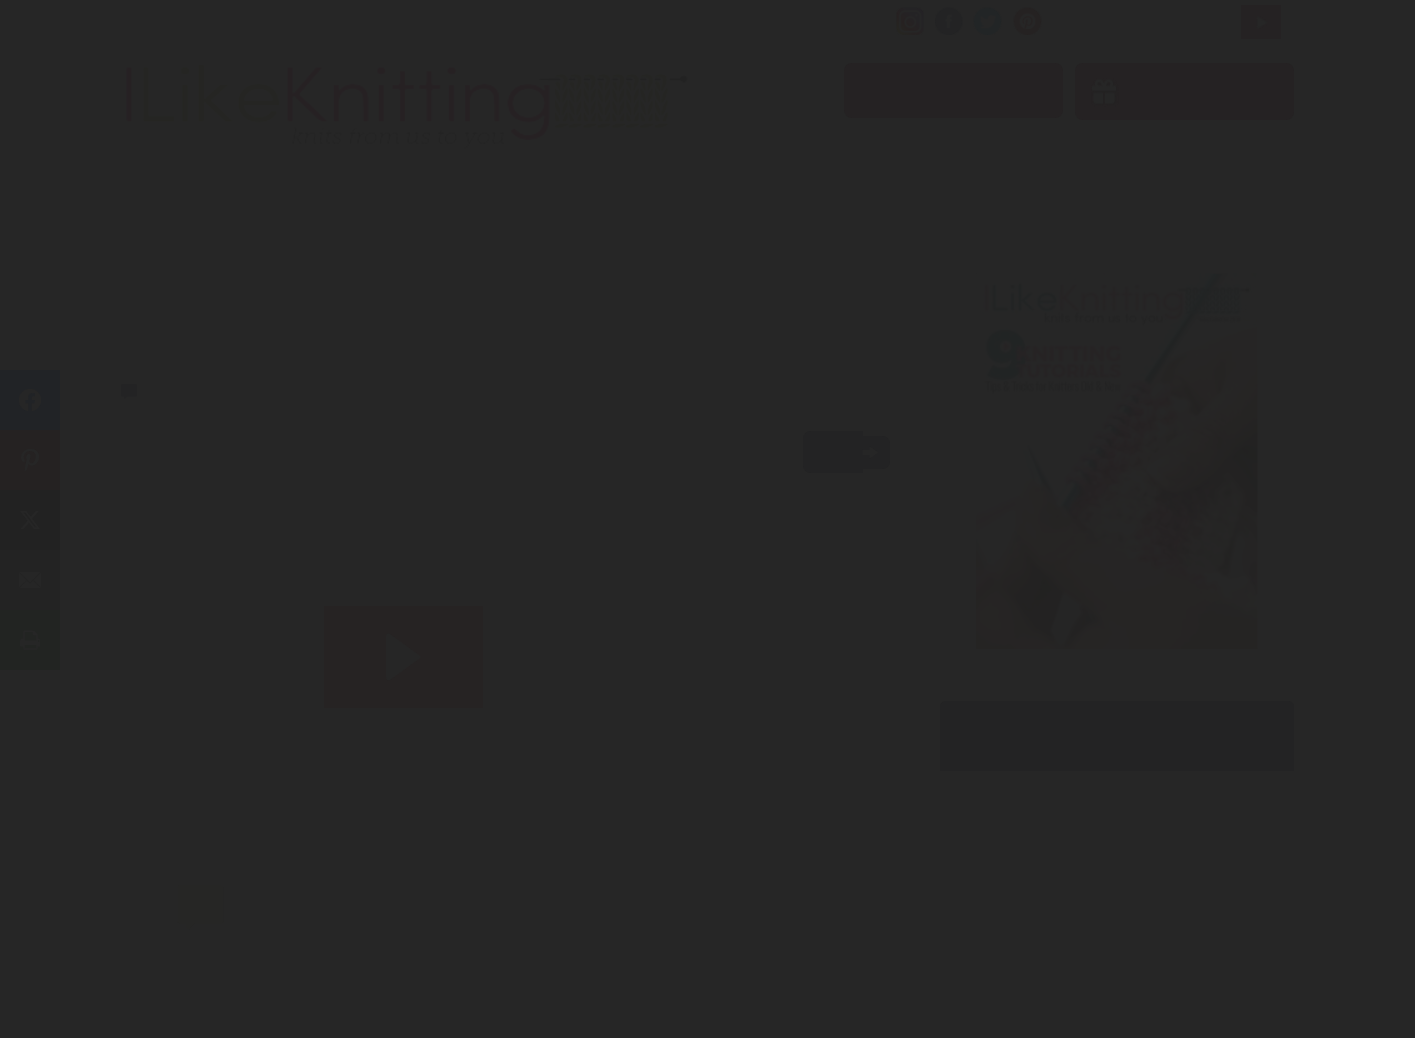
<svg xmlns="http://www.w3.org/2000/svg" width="1415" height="1038">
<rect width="100%" height="100%" fill="#262626"/>
<image x="896" y="7" width="28" height="28" href="media/1.png"/>
<image x="935" y="7" width="28" height="28" href="media/2.png"/>
<image x="973" y="7" width="29" height="28" href="media/3.png"/>
<image x="1013" y="7" width="29" height="28" href="media/4.png"/>
<rect x="1241" y="5" width="40" height="34" fill="#252223"/>
<image x="1256" y="15" width="12" height="14" href="media/5.png"/>
<image x="126" y="64" width="562" height="85" href="media/6.png"/>
<rect x="844" y="63" width="219" height="55" rx="8" fill="#252223"/>
<rect x="1075" y="63" width="219" height="57" rx="8" fill="#252223"/>
<image x="1091" y="78" width="28" height="29" href="media/7.png"/>
<rect y="370" width="60" height="60" fill="#212326"/>
<image x="19" y="389" width="22" height="22" href="media/8.png"/>
<rect y="430" width="60" height="60" fill="#252222"/>
<image x="21" y="449" width="18" height="22" href="media/9.png"/>
<rect y="490" width="60" height="60" fill="#222"/>
<image x="20" y="510" width="20" height="20" href="media/10.png"/>
<rect y="550" width="60" height="60" fill="#232323"/>
<image x="19" y="571" width="22" height="18" href="media/11.png"/>
<rect y="610" width="60" height="60" fill="#222422"/>
<image x="20" y="630" width="20" height="20" href="media/12.png"/>
<image x="121" y="384" width="16" height="15" href="media/13.png"/>
<path d="M811 431h52v42h-52c-4.5 0-8-3.5-8-8v-26c0-4.5 3.5-8 8-8z" fill="#232324"/>
<path d="M863 436h19c4.5 0 8 3.5 8 8v17c0 4.5-3.5 8-8 8h-19z" fill="#232324"/>
<image x="862" y="446" width="16" height="13" href="media/14.png"/>
<rect x="324" y="606" width="159" height="102" fill="#262323"/>
<path d="M390 634c-2-1-4 0-4 2v41c0 3 2 4 4 3l29-21c2-1 2-3 0-4z" fill="#262626" fill-rule="evenodd"/>
<image x="177" y="885" width="47" height="45" href="media/15.png"/>
<image x="976" y="273" width="282" height="376" href="media/16.png"/>
<path d="M946 701h342c3.5 0 6 2.5 6 6v64h-354v-64c0-3.5 2.5-6 6-6z" fill="#232324"/>
</svg>
